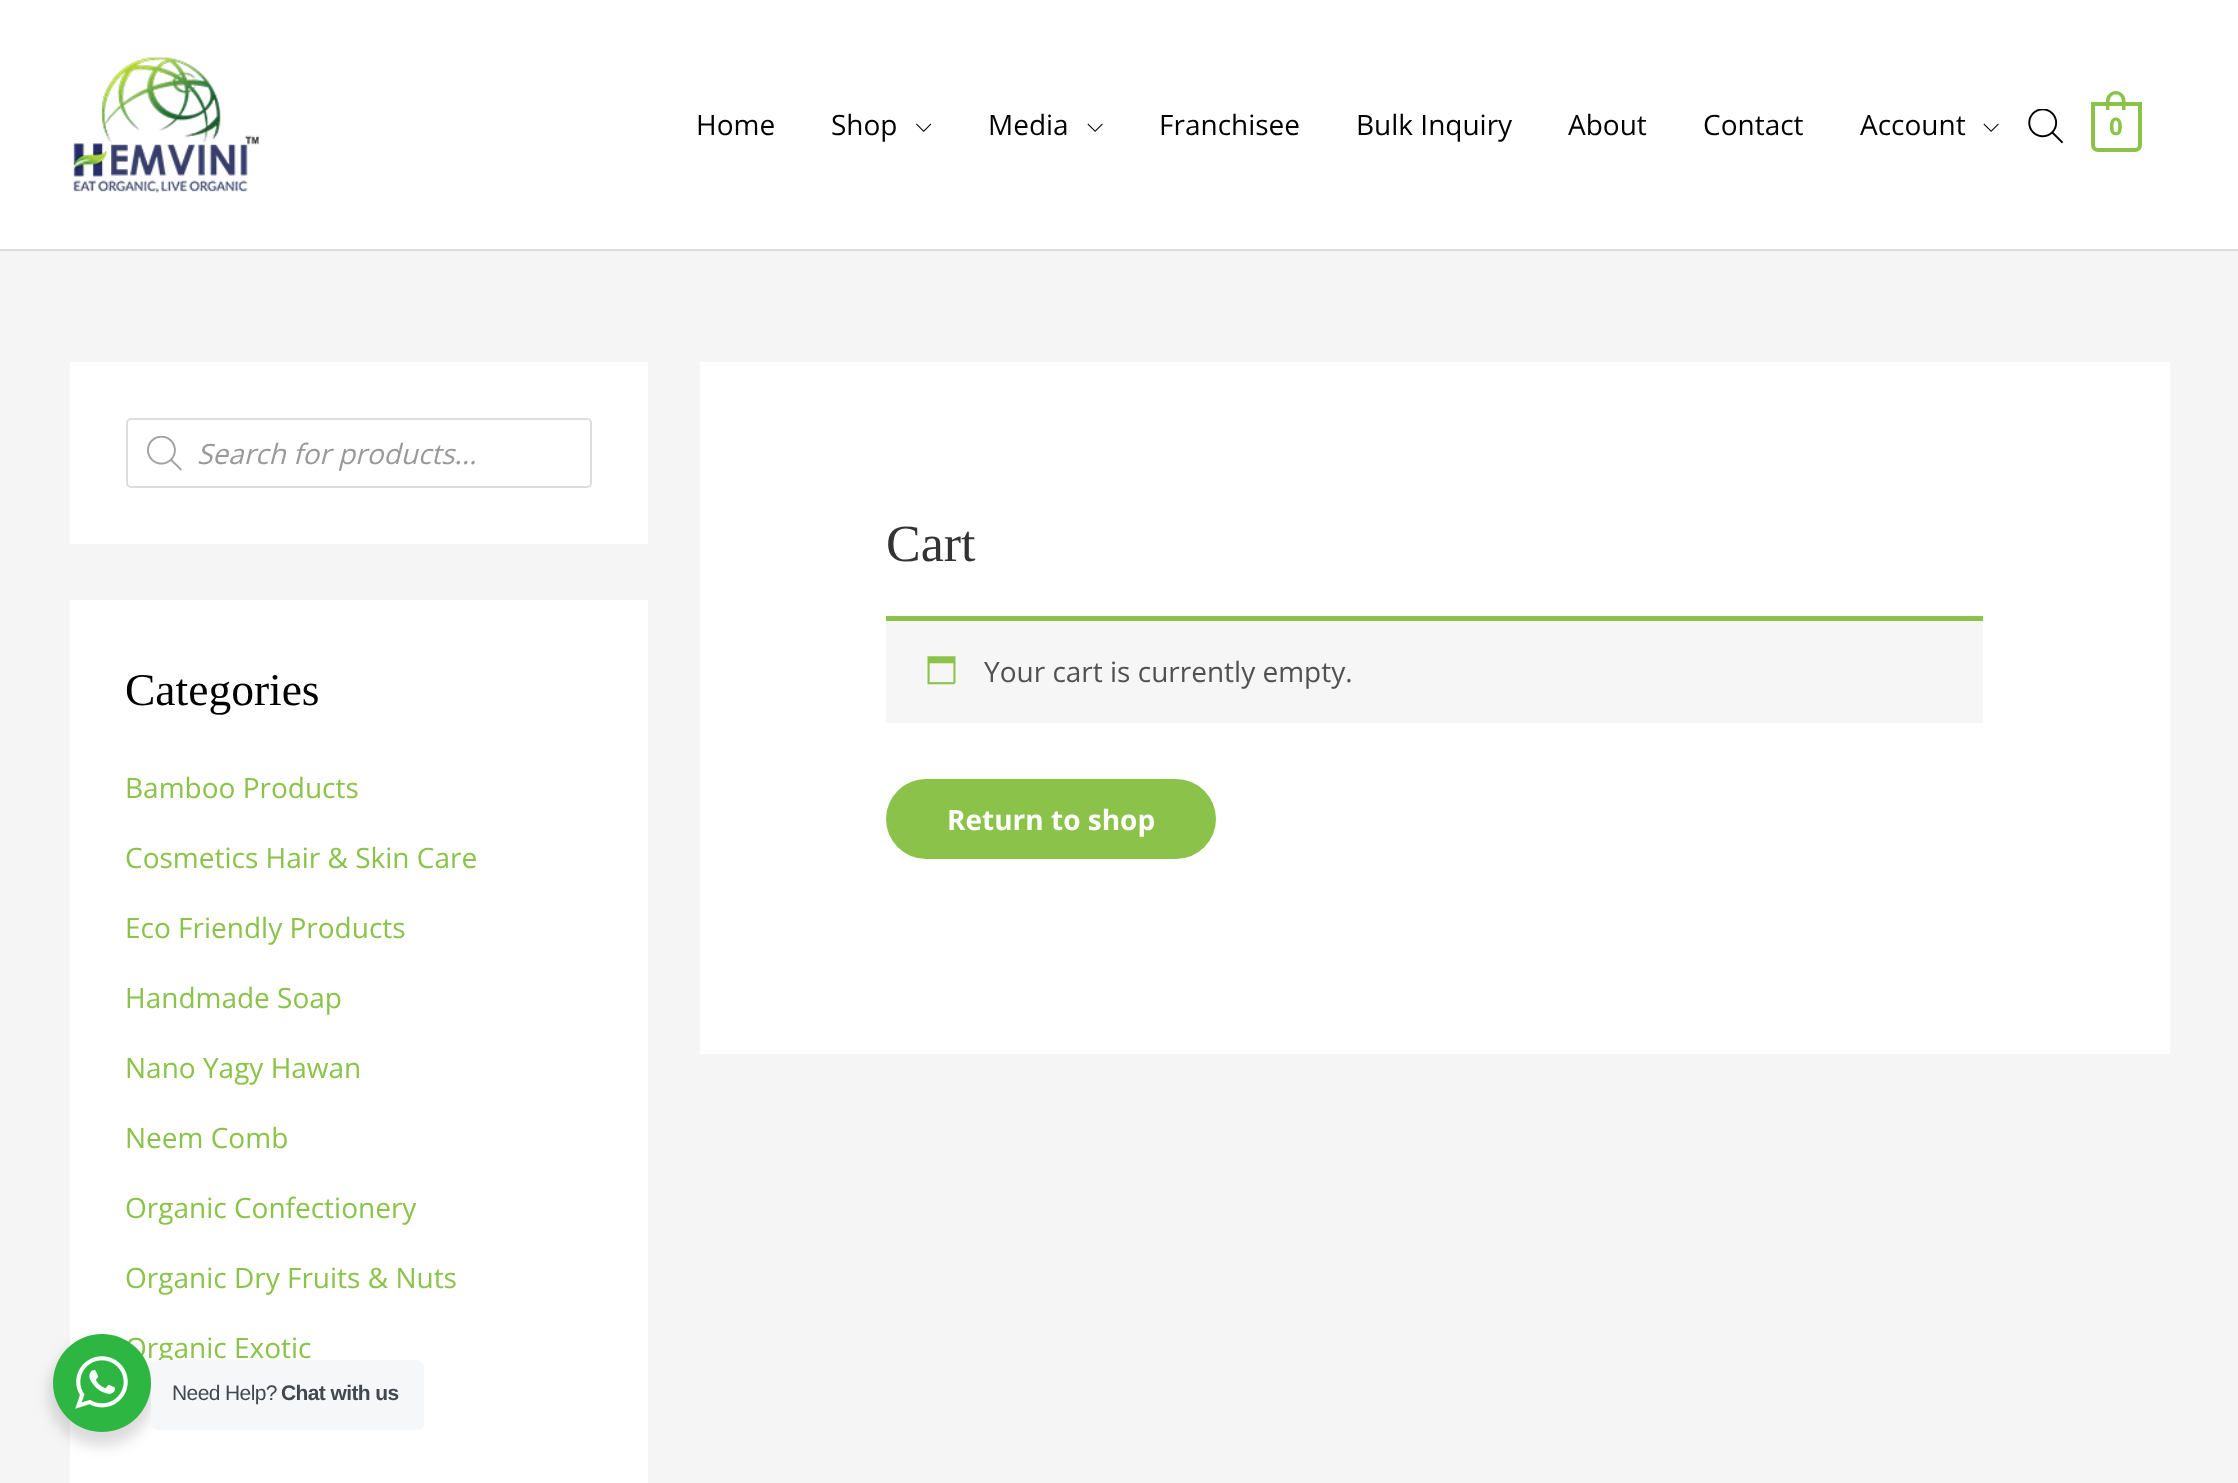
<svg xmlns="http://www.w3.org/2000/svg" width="2238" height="1483">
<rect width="100%" height="100%" fill="#f5f5f5"/>
<rect width="2238" height="249" fill="#fff"/>
<rect y="249" width="2238" height="2" fill="#ddd"/>
<image x="73" y="57" width="186" height="136" href="media/1.png"/>
<text x="696" y="135" style="font-family:Open Sans;font-size:28px;fill:#000">Home</text>
<text x="831" y="135" style="font-family:Open Sans;font-size:28px;fill:#000">Shop</text>
<image x="916" y="123" width="16" height="9" href="media/2.png"/>
<text x="988" y="135" style="font-family:Open Sans;font-size:28px;fill:#000">Media</text>
<image x="1087" y="123" width="16" height="9" href="media/3.png"/>
<text x="1159" y="135" style="font-family:Open Sans;font-size:28px;fill:#000">Franchisee</text>
<text x="1356" y="135" style="font-family:Open Sans;font-size:28px;fill:#000">Bulk Inquiry</text>
<text x="1568" y="135" style="font-family:Open Sans;font-size:28px;fill:#000">About</text>
<text x="1703" y="135" style="font-family:Open Sans;font-size:28px;fill:#000">Contact</text>
<text x="1860" y="135" style="font-family:Open Sans;font-size:28px;fill:#000">Account</text>
<image x="1983" y="123" width="16" height="9" href="media/3.png"/>
<image x="2028" y="109" width="35" height="35" href="media/4.png"/>
<path d="M2093 104h47v41c0 3-2 5-5 5h-37c-3 0-5-2-5-5z" fill="none" stroke="#8bc34a" stroke-width="4"/>
<path d="M2116 91c5 0 9.5 4.5 9.5 9.5v9.5h-19.5v-9.5c0-5 4.5-9.5 10-9.5zm0 3.5c7.5 0 6 10.5 6 15.5h-12.5c0-5-1.5-15.5 6.5-15.5z" fill="#8bc34a" fill-rule="evenodd"/>
<text x="2109" y="135" style="font-family:Open Sans;font-size:24px;font-weight:bold;fill:#8bc34a">0</text>
<rect x="70" y="362" width="578" height="182" fill="#fff"/>
<rect x="127" y="419" width="464" height="68" rx="4" fill="none" stroke="#ddd" stroke-width="2"/>
<image x="147" y="436" width="35" height="35" href="media/5.png"/>
<text x="197" y="464" style="font-family:Open Sans;font-size:28px;font-style:italic;fill:#999">Search for products...</text>
<rect x="70" y="600" width="578" height="883" fill="#fff"/>
<text x="125" y="705" style="font-family:Liberation Serif;font-size:45.5px;fill:#000">Categories</text>
<text x="125" y="798" style="font-family:Open Sans;font-size:28px;fill:#8bc34a">Bamboo Products</text>
<text x="125" y="868" style="font-family:Open Sans;font-size:28px;fill:#8bc34a">Cosmetics Hair &amp; Skin Care</text>
<text x="125" y="938" style="font-family:Open Sans;font-size:28px;fill:#8bc34a">Eco Friendly Products</text>
<text x="125" y="1008" style="font-family:Open Sans;font-size:28px;fill:#8bc34a">Handmade Soap</text>
<text x="125" y="1078" style="font-family:Open Sans;font-size:28px;fill:#8bc34a">Nano Yagy Hawan</text>
<text x="125" y="1148" style="font-family:Open Sans;font-size:28px;fill:#8bc34a">Neem Comb</text>
<text x="125" y="1218" style="font-family:Open Sans;font-size:28px;fill:#8bc34a">Organic Confectionery</text>
<text x="125" y="1288" style="font-family:Open Sans;font-size:28px;fill:#8bc34a">Organic Dry Fruits &amp; Nuts</text>
<text x="125" y="1358" style="font-family:Open Sans;font-size:28px;fill:#8bc34a">Organic Exotic</text>
<rect x="700" y="362" width="1470" height="692" fill="#fff"/>
<text x="886" y="561" style="font-family:Liberation Serif;font-size:52px;fill:#333">Cart</text>
<rect x="886" y="621" width="1097" height="102" fill="#f7f6f7"/>
<rect x="886" y="616" width="1097" height="5" fill="#8bc34a"/>
<image x="927" y="656" width="29" height="29" href="media/6.png"/>
<text x="984" y="682" style="font-family:Open Sans;font-size:28px;fill:#515151">Your cart is currently empty.</text>
<rect x="886" y="779" width="330" height="80" rx="40" fill="#8bc34a"/>
<text x="947" y="830" style="font-family:Open Sans;font-size:28px;font-weight:bold;fill:#fff">Return to shop</text>
<rect x="49" y="1341" width="105" height="105" rx="52.5" fill="#00000024" filter="blur(7px)"/>
<circle cx="102" cy="1383" r="49" fill="#2db742"/>
<image x="75" y="1356" width="53" height="53" href="media/7.png"/>
<rect x="151" y="1360" width="273" height="70" rx="7" fill="#f5f7f9"/>
<text x="172" y="1400" style="font-family:Liberation Sans;font-size:21px;letter-spacing:-0.6px;fill:#43474e">Need Help?</text>
<text x="281" y="1400" style="font-family:Liberation Sans;font-size:21px;font-weight:bold;letter-spacing:-0.6px;fill:#43474e">Chat with us</text>
</svg>
